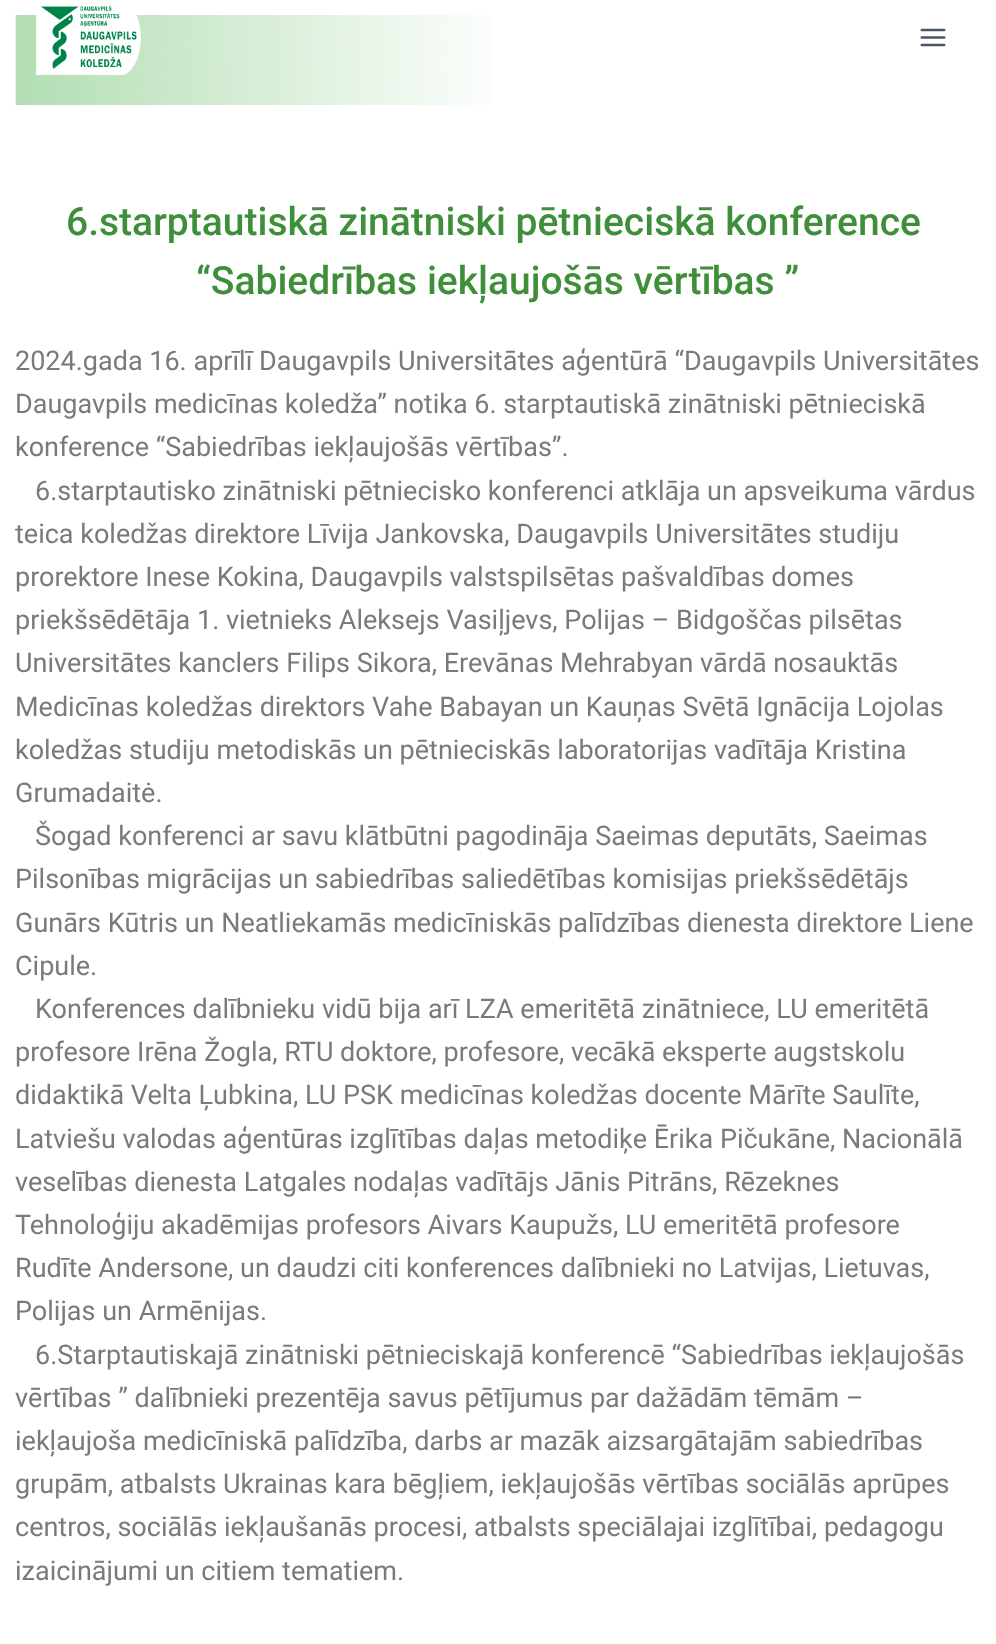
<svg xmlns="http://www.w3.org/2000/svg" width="996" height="1644">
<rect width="100%" height="100%" fill="#fff"/>
<image x="15" y="15" width="476" height="90" href="media/3.png"/>
<image x="36" y="6" width="105" height="69" href="media/1.png"/>
<image x="920" y="28" width="26" height="19" href="media/2.png"/>
<text x="66" y="235" style="font-family:Roboto;font-size:39px;font-weight:500;fill:#3f8f3a">6.starptautiskā zinātniski pētnieciskā konference</text>
<text x="196" y="294" style="font-family:Roboto;font-size:39px;font-weight:500;fill:#3f8f3a">“Sabiedrības iekļaujošās vērtības ”</text>
<text x="15" y="370" style="font-family:Roboto;font-size:27px;fill:#7a7a7a">2024.gada 16. aprīlī Daugavpils Universitātes aģentūrā “Daugavpils Universitātes</text>
<text x="15" y="413" style="font-family:Roboto;font-size:27px;fill:#7a7a7a">Daugavpils medicīnas koledža” notika 6. starptautiskā zinātniski pētnieciskā</text>
<text x="15" y="456" style="font-family:Roboto;font-size:27px;fill:#7a7a7a">konference “Sabiedrības iekļaujošās vērtības”.</text>
<text x="35" y="500" style="font-family:Roboto;font-size:27px;fill:#7a7a7a">6.starptautisko zinātniski pētniecisko konferenci atklāja un apsveikuma vārdus</text>
<text x="15" y="543" style="font-family:Roboto;font-size:27px;fill:#7a7a7a">teica koledžas direktore Līvija Jankovska, Daugavpils Universitātes studiju</text>
<text x="15" y="586" style="font-family:Roboto;font-size:27px;fill:#7a7a7a">prorektore Inese Kokina, Daugavpils valstspilsētas pašvaldības domes</text>
<text x="15" y="629" style="font-family:Roboto;font-size:27px;fill:#7a7a7a">priekšsēdētāja 1. vietnieks Aleksejs Vasiļjevs, Polijas – Bidgoščas pilsētas</text>
<text x="15" y="672" style="font-family:Roboto;font-size:27px;fill:#7a7a7a">Universitātes kanclers Filips Sikora, Erevānas Mehrabyan vārdā nosauktās</text>
<text x="15" y="716" style="font-family:Roboto;font-size:27px;fill:#7a7a7a">Medicīnas koledžas direktors Vahe Babayan un Kauņas Svētā Ignācija Lojolas</text>
<text x="15" y="759" style="font-family:Roboto;font-size:27px;fill:#7a7a7a">koledžas studiju metodiskās un pētnieciskās laboratorijas vadītāja Kristina</text>
<text x="15" y="802" style="font-family:Roboto;font-size:27px;fill:#7a7a7a">Grumadaitė.</text>
<text x="35" y="845" style="font-family:Roboto;font-size:27px;fill:#7a7a7a">Šogad konferenci ar savu klātbūtni pagodināja Saeimas deputāts, Saeimas</text>
<text x="15" y="888" style="font-family:Roboto;font-size:27px;fill:#7a7a7a">Pilsonības migrācijas un sabiedrības saliedētības komisijas priekšsēdētājs</text>
<text x="15" y="932" style="font-family:Roboto;font-size:27px;fill:#7a7a7a">Gunārs Kūtris un Neatliekamās medicīniskās palīdzības dienesta direktore Liene</text>
<text x="15" y="975" style="font-family:Roboto;font-size:27px;fill:#7a7a7a">Cipule.</text>
<text x="35" y="1018" style="font-family:Roboto;font-size:27px;fill:#7a7a7a">Konferences dalībnieku vidū bija arī LZA emeritētā zinātniece, LU emeritētā</text>
<text x="15" y="1061" style="font-family:Roboto;font-size:27px;fill:#7a7a7a">profesore Irēna Žogla, RTU doktore, profesore, vecākā eksperte augstskolu</text>
<text x="15" y="1104" style="font-family:Roboto;font-size:27px;fill:#7a7a7a">didaktikā Velta Ļubkina, LU PSK medicīnas koledžas docente Mārīte Saulīte,</text>
<text x="15" y="1148" style="font-family:Roboto;font-size:27px;fill:#7a7a7a">Latviešu valodas aģentūras izglītības daļas metodiķe Ērika Pičukāne, Nacionālā</text>
<text x="15" y="1191" style="font-family:Roboto;font-size:27px;fill:#7a7a7a">veselības dienesta Latgales nodaļas vadītājs Jānis Pitrāns, Rēzeknes</text>
<text x="15" y="1234" style="font-family:Roboto;font-size:27px;fill:#7a7a7a">Tehnoloģiju akadēmijas profesors Aivars Kaupužs, LU emeritētā profesore</text>
<text x="15" y="1277" style="font-family:Roboto;font-size:27px;fill:#7a7a7a">Rudīte Andersone, un daudzi citi konferences dalībnieki no Latvijas, Lietuvas,</text>
<text x="15" y="1320" style="font-family:Roboto;font-size:27px;fill:#7a7a7a">Polijas un Armēnijas.</text>
<text x="35" y="1364" style="font-family:Roboto;font-size:27px;fill:#7a7a7a">6.Starptautiskajā zinātniski pētnieciskajā konferencē “Sabiedrības iekļaujošās</text>
<text x="15" y="1407" style="font-family:Roboto;font-size:27px;fill:#7a7a7a">vērtības ” dalībnieki prezentēja savus pētījumus par dažādām tēmām –</text>
<text x="15" y="1450" style="font-family:Roboto;font-size:27px;fill:#7a7a7a">iekļaujoša medicīniskā palīdzība, darbs ar mazāk aizsargātajām sabiedrības</text>
<text x="15" y="1493" style="font-family:Roboto;font-size:27px;fill:#7a7a7a">grupām, atbalsts Ukrainas kara bēgļiem, iekļaujošās vērtības sociālās aprūpes</text>
<text x="15" y="1536" style="font-family:Roboto;font-size:27px;fill:#7a7a7a">centros, sociālās iekļaušanās procesi, atbalsts speciālajai izglītībai, pedagogu</text>
<text x="15" y="1580" style="font-family:Roboto;font-size:27px;fill:#7a7a7a">izaicinājumi un citiem tematiem.</text>
</svg>
